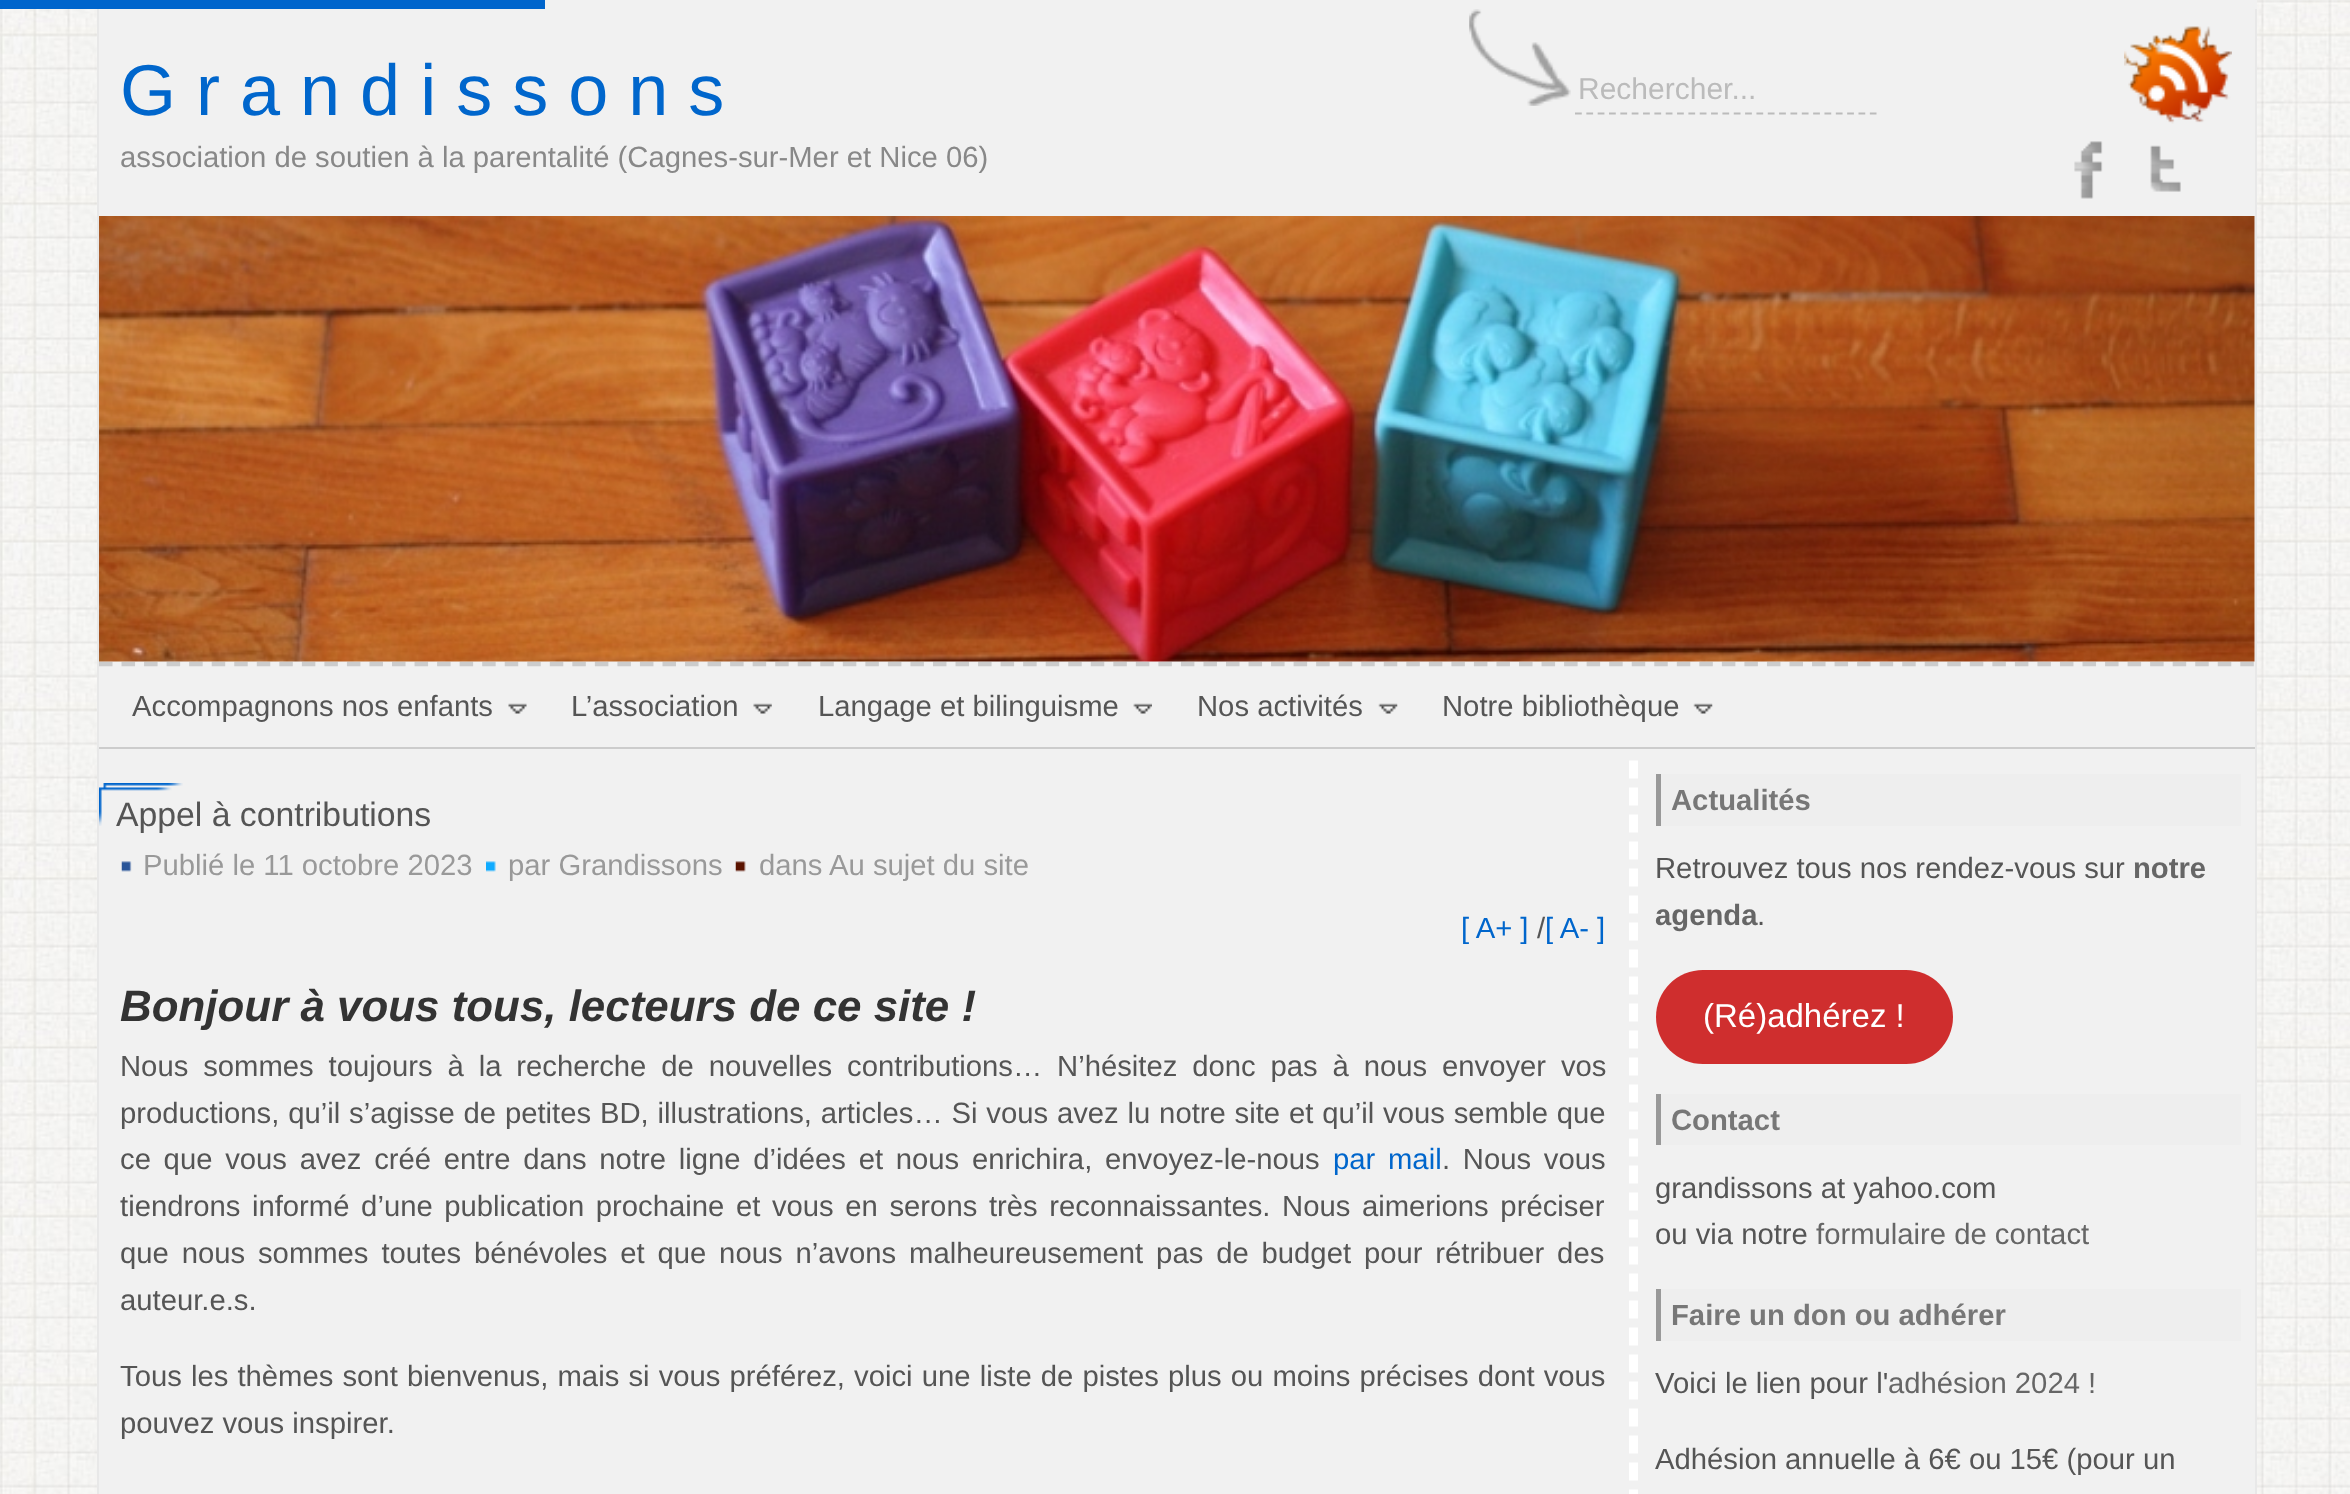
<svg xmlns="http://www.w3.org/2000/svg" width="2350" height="1494">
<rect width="100%" height="100%" fill="#fff"/>
<image x="0" y="0" width="2350" height="1494" href="media/1.png"/>
<rect x="99" width="2158" height="1494" fill="#f1f1f1"/>
<rect width="545" height="9" fill="#0065cc"/>
<rect x="2255" y="9" width="2" height="1485" fill="#e8e8e8"/>
<rect x="97" y="9" width="2" height="1485" fill="#e8e8e8"/>
<text x="120" y="115" style="font-family:Liberation Sans;font-size:72px;fill:#06c">G r a n d i s s o n s</text>
<text x="120" y="167" style="font-family:Liberation Sans;font-size:29.25px;fill:#888">association de soutien à la parentalité (Cagnes-sur-Mer et Nice 06)</text>
<image x="1469" y="9" width="102" height="97" href="media/2.png"/>
<path d="M1575 113.5h301.5" fill="none" stroke="#bbb" stroke-width="2.2" stroke-dasharray="6.75 4.59"/>
<text x="1578" y="99" style="font-family:Liberation Sans;font-size:30px;fill:#bbb">Rechercher...</text>
<image x="2124" y="26" width="108" height="98" href="media/3.png"/>
<image x="2074" y="141" width="29" height="58" href="media/4.png"/>
<image x="2150" y="145" width="31" height="47" href="media/5.png"/>
<path d="M99 664h2155.5" fill="none" stroke="#ccc" stroke-width="4.5" stroke-dasharray="13.5 9.04"/>
<image x="99" y="216" width="2156" height="446" href="media/6.png"/>
<rect x="99" y="747" width="2156" height="2" fill="#ccc"/>
<text x="132" y="716" style="font-family:Liberation Sans;font-size:29.25px;fill:#555">Accompagnons nos enfants</text>
<image x="508" y="703" width="19" height="11" href="media/7.png"/>
<text x="571" y="716" style="font-family:Liberation Sans;font-size:29.25px;fill:#555">L’association</text>
<image x="753" y="703" width="19" height="11" href="media/8.png"/>
<text x="818" y="716" style="font-family:Liberation Sans;font-size:29.25px;fill:#555">Langage et bilinguisme</text>
<image x="1133" y="703" width="19" height="11" href="media/9.png"/>
<text x="1197" y="716" style="font-family:Liberation Sans;font-size:29.25px;fill:#555">Nos activités</text>
<image x="1378" y="703" width="20" height="11" href="media/10.png"/>
<text x="1442" y="716" style="font-family:Liberation Sans;font-size:29.25px;fill:#555">Notre bibliothèque</text>
<image x="1693" y="703" width="20" height="11" href="media/11.png"/>
<path d="M1633.5 760.5v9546.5" fill="none" stroke="#fff" stroke-width="9" stroke-dasharray="18 9"/>
<image x="99" y="783" width="84" height="43" href="media/12.png"/>
<text x="116" y="826" style="font-family:Liberation Sans;font-size:33.75px;fill:#555">Appel à contributions</text>
<image x="121" y="861" width="11" height="11" href="media/13.png"/>
<text x="143" y="875" style="font-family:Liberation Sans;font-size:29.25px;fill:#999">Publié le 11 octobre 2023</text>
<image x="486" y="861" width="10" height="11" href="media/14.png"/>
<text x="508" y="875" style="font-family:Liberation Sans;font-size:29.25px;fill:#999">par Grandissons</text>
<image x="735" y="861" width="11" height="11" href="media/15.png"/>
<text x="759" y="875" style="font-family:Liberation Sans;font-size:29.25px;fill:#999">dans</text>
<text x="829" y="875" style="font-family:Liberation Sans;font-size:29.25px;fill:#999">Au sujet du site</text>
<text x="1461" y="938" style="font-family:Liberation Sans;font-size:29.25px;fill:#06c">[ A+ ]</text>
<text x="1537" y="938" style="font-family:Liberation Sans;font-size:29.25px;fill:#555">/</text>
<text x="1545" y="938" style="font-family:Liberation Sans;font-size:29.25px;fill:#06c">[ A- ]</text>
<text x="120" y="1021" style="font-family:Liberation Sans;font-size:43.9px;font-weight:bold;font-style:italic;fill:#333">Bonjour à vous tous, lecteurs de ce site !</text>
<text x="120" y="1076" word-spacing="6.75" style="font-family:Liberation Sans;font-size:29.25px;fill:#555">Nous sommes toujours à la recherche de nouvelles contributions… N’hésitez donc pas à nous envoyer vos</text>
<text x="120" y="1123" word-spacing="0.7" style="font-family:Liberation Sans;font-size:29.25px;fill:#555">productions, qu’il s’agisse de petites BD, illustrations, articles… Si vous avez lu notre site et qu’il vous semble que</text>
<text x="120" y="1169" word-spacing="4.6" style="font-family:Liberation Sans;font-size:29.25px;fill:#555">ce que vous avez créé entre dans notre ligne d’idées et nous enrichira, envoyez-le-nous</text>
<text x="1333" y="1169" word-spacing="4.6" style="font-family:Liberation Sans;font-size:29.25px;fill:#06c">par mail</text>
<text x="1442" y="1169" word-spacing="4.6" style="font-family:Liberation Sans;font-size:29.25px;fill:#555">. Nous vous</text>
<text x="120" y="1216" word-spacing="3.5" style="font-family:Liberation Sans;font-size:29.25px;fill:#555">tiendrons informé d’une publication prochaine et vous en serons très reconnaissantes. Nous aimerions préciser</text>
<text x="120" y="1263" word-spacing="4.75" style="font-family:Liberation Sans;font-size:29.25px;fill:#555">que nous sommes toutes bénévoles et que nous n’avons malheureusement pas de budget pour rétribuer des</text>
<text x="120" y="1310" style="font-family:Liberation Sans;font-size:29.25px;fill:#555">auteur.e.s.</text>
<text x="120" y="1386" word-spacing="1" style="font-family:Liberation Sans;font-size:29.25px;fill:#555">Tous les thèmes sont bienvenus, mais si vous préférez, voici une liste de pistes plus ou moins précises dont vous</text>
<text x="120" y="1433" style="font-family:Liberation Sans;font-size:29.25px;fill:#555">pouvez vous inspirer.</text>
<rect x="1661" y="774" width="580" height="52" fill="#eee"/>
<rect x="1656" y="774" width="5" height="52" fill="#999"/>
<text x="1671" y="810" style="font-family:Liberation Sans;font-size:29.25px;font-weight:bold;fill:#777">Actualités</text>
<text x="1655" y="878" style="font-family:Liberation Sans;font-size:29.25px;fill:#555">Retrouvez tous nos rendez-vous sur</text>
<text x="2133" y="878" style="font-family:Liberation Sans;font-size:29.25px;font-weight:bold;fill:#666">notre</text>
<text x="1655" y="925" style="font-family:Liberation Sans;font-size:29.25px;font-weight:bold;fill:#666">agenda</text>
<text x="1757" y="925" style="font-family:Liberation Sans;font-size:29.25px;fill:#555">.</text>
<rect x="1656" y="970" width="297" height="94" rx="47" fill="#cf2e2e"/>
<text x="1703" y="1027" style="font-family:Liberation Sans;font-size:33px;fill:#fff">(Ré)adhérez !</text>
<rect x="1661" y="1094" width="580" height="51" fill="#eee"/>
<rect x="1656" y="1094" width="5" height="51" fill="#999"/>
<text x="1671" y="1130" style="font-family:Liberation Sans;font-size:29.25px;font-weight:bold;fill:#777">Contact</text>
<text x="1655" y="1198" style="font-family:Liberation Sans;font-size:29.25px;fill:#555">grandissons at yahoo.com</text>
<text x="1655" y="1244" style="font-family:Liberation Sans;font-size:29.25px;fill:#555">ou via notre</text>
<text x="1816" y="1244" style="font-family:Liberation Sans;font-size:29.25px;fill:#666">formulaire de contact</text>
<rect x="1661" y="1289" width="580" height="52" fill="#eee"/>
<rect x="1656" y="1289" width="5" height="52" fill="#999"/>
<text x="1671" y="1325" style="font-family:Liberation Sans;font-size:29.25px;font-weight:bold;fill:#777">Faire un don ou adhérer</text>
<text x="1655" y="1393" style="font-family:Liberation Sans;font-size:29.25px;fill:#555">Voici le lien pour l'</text>
<text x="1888" y="1393" style="font-family:Liberation Sans;font-size:29.25px;fill:#666">adhésion 2024 !</text>
<text x="1655" y="1469" style="font-family:Liberation Sans;font-size:29.25px;fill:#555">Adhésion annuelle à 6€ ou 15€ (pour un</text>
</svg>
